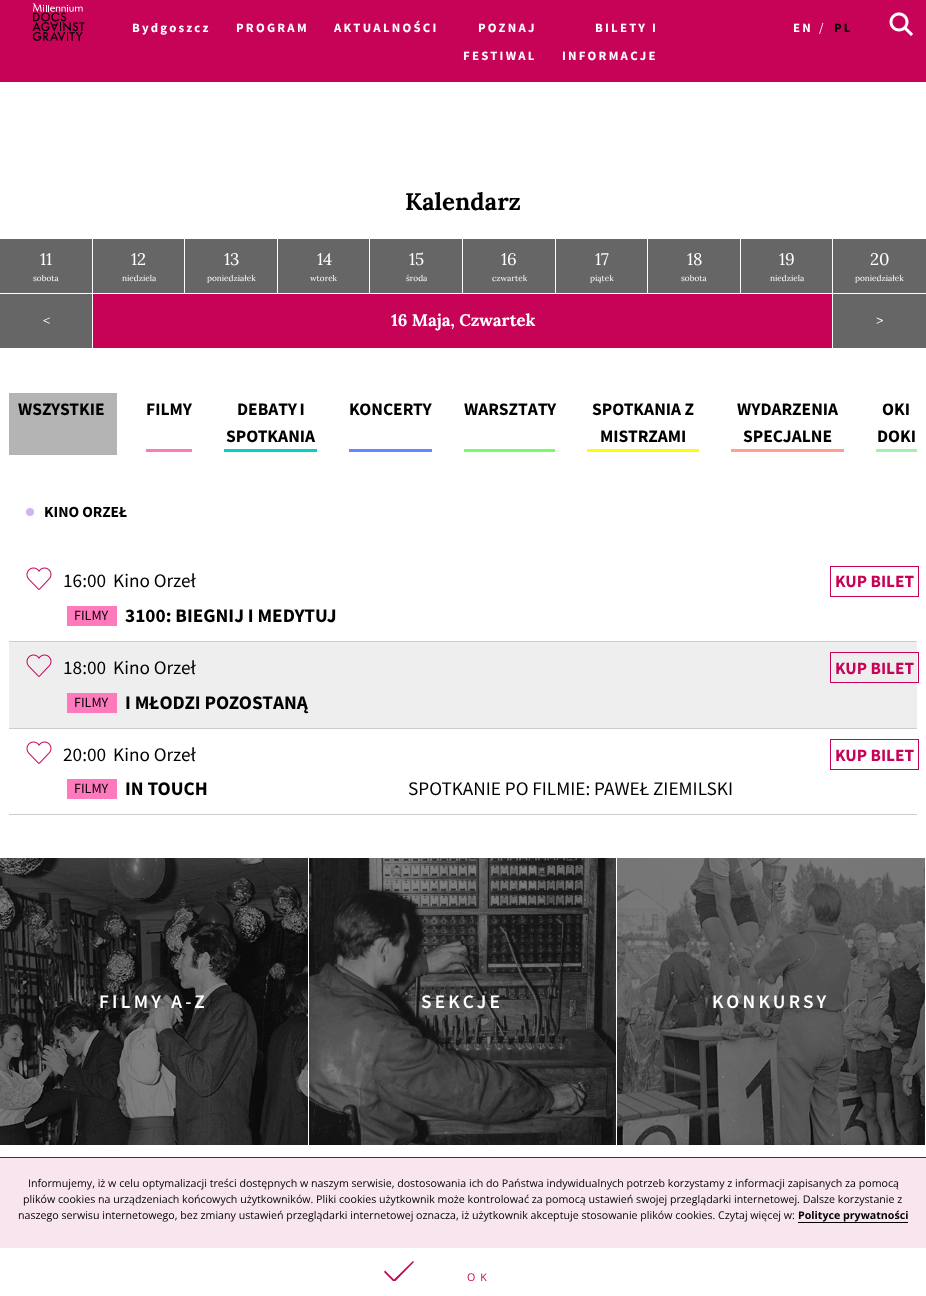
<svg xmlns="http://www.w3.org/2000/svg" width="926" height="1296">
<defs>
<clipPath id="clip1"><rect x="9" y="380" width="908" height="88"/></clipPath>
<clipPath id="clip2"><rect x="384" y="1261" width="30" height="20"/></clipPath>
</defs>
<rect width="100%" height="100%" fill="#fff"/>
<rect width="926" height="82" fill="#c70358"/>
<image x="32" y="3" width="53" height="39" href="media/1.png"/>
<text x="132" y="32" style="font-family:Source Sans Pro;font-size:12.75px;font-weight:bold;letter-spacing:2.25px;fill:#fff">Bydgoszcz</text>
<text x="236" y="32" style="font-family:Source Sans Pro;font-size:12.75px;font-weight:bold;letter-spacing:2.25px;fill:#fff">PROGRAM</text>
<text x="334" y="32" style="font-family:Source Sans Pro;font-size:12.75px;font-weight:bold;letter-spacing:2.25px;fill:#fff">AKTUALNOŚCI</text>
<text x="478" y="32" style="font-family:Source Sans Pro;font-size:12.75px;font-weight:bold;letter-spacing:2.25px;fill:#fff">POZNAJ</text>
<text x="463" y="60" style="font-family:Source Sans Pro;font-size:12.75px;font-weight:bold;letter-spacing:2.25px;fill:#fff">FESTIWAL</text>
<text x="595" y="32" style="font-family:Source Sans Pro;font-size:12.75px;font-weight:bold;letter-spacing:2.25px;fill:#fff">BILETY I</text>
<text x="562" y="60" style="font-family:Source Sans Pro;font-size:12.75px;font-weight:bold;letter-spacing:2.25px;fill:#fff">INFORMACJE</text>
<text x="793" y="32" style="font-family:Source Sans Pro;font-size:12.75px;font-weight:bold;letter-spacing:2.25px;fill:#fff">EN</text>
<text x="819" y="32" style="font-family:Source Sans Pro;font-size:12.75px;letter-spacing:2.25px;fill:#fff">/</text>
<text x="834" y="32" style="font-family:Source Sans Pro;font-size:12.75px;font-weight:bold;letter-spacing:2.25px;fill:#000">PL</text>
<image x="889" y="12" width="24" height="24" href="media/2.png"/>
<text x="405" y="210" style="font-family:Lora;font-size:24px;font-weight:bold;fill:#000">Kalendarz</text>
<rect y="239" width="92" height="54" fill="#666"/>
<text x="40" y="265" style="font-family:Lora;font-size:16.75px;fill:#fff">11</text>
<text x="33" y="281" style="font-family:Lora;font-size:8.25px;fill:#fff">sobota</text>
<rect x="93" y="239" width="91" height="54" fill="#666"/>
<text x="131" y="265" style="font-family:Lora;font-size:16.75px;fill:#fff">12</text>
<text x="122" y="281" style="font-family:Lora;font-size:8.25px;fill:#fff">niedziela</text>
<rect x="185" y="239" width="92" height="54" fill="#666"/>
<text x="224" y="265" style="font-family:Lora;font-size:16.75px;fill:#fff">13</text>
<text x="207" y="281" style="font-family:Lora;font-size:8.25px;fill:#fff">poniedziałek</text>
<rect x="278" y="239" width="91" height="54" fill="#666"/>
<text x="317" y="265" style="font-family:Lora;font-size:16.75px;fill:#fff">14</text>
<text x="310" y="281" style="font-family:Lora;font-size:8.25px;fill:#fff">wtorek</text>
<rect x="370" y="239" width="92" height="54" fill="#666"/>
<text x="409" y="265" style="font-family:Lora;font-size:16.75px;fill:#fff">15</text>
<text x="406" y="281" style="font-family:Lora;font-size:8.25px;fill:#fff">środa</text>
<rect x="463" y="239" width="92" height="54" fill="#666"/>
<text x="501" y="265" style="font-family:Lora;font-size:16.75px;fill:#fff">16</text>
<text x="492" y="281" style="font-family:Lora;font-size:8.25px;fill:#fff">czwartek</text>
<rect x="556" y="239" width="91" height="54" fill="#666"/>
<text x="595" y="265" style="font-family:Lora;font-size:16.75px;fill:#fff">17</text>
<text x="590" y="281" style="font-family:Lora;font-size:8.25px;fill:#fff">piątek</text>
<rect x="648" y="239" width="92" height="54" fill="#666"/>
<text x="687" y="265" style="font-family:Lora;font-size:16.75px;fill:#fff">18</text>
<text x="681" y="281" style="font-family:Lora;font-size:8.25px;fill:#fff">sobota</text>
<rect x="741" y="239" width="91" height="54" fill="#666"/>
<text x="779" y="265" style="font-family:Lora;font-size:16.75px;fill:#fff">19</text>
<text x="770" y="281" style="font-family:Lora;font-size:8.25px;fill:#fff">niedziela</text>
<rect x="833" y="239" width="93" height="54" fill="#666"/>
<text x="870" y="265" style="font-family:Lora;font-size:16.75px;fill:#fff">20</text>
<text x="855" y="281" style="font-family:Lora;font-size:8.25px;fill:#fff">poniedziałek</text>
<rect y="294" width="92" height="54" fill="#666"/>
<text x="43" y="325" style="font-family:Lora;font-size:14px;fill:#fff">&lt;</text>
<rect x="93" y="294" width="739" height="54" fill="#c70358"/>
<text x="391" y="326" style="font-family:Lora;font-size:16.75px;font-weight:bold;fill:#fff">16 Maja, Czwartek</text>
<rect x="833" y="294" width="93" height="54" fill="#666"/>
<text x="876" y="325" style="font-family:Lora;font-size:14px;fill:#fff">&gt;</text>
<rect x="9" y="396" width="105" height="56" fill="#b4b4b4"/>
<g clip-path="url(#clip1)">
<rect x="7.5" y="394.5" width="108" height="59" fill="none" stroke="#b4b4b4" stroke-width="3"/>
</g>
<text x="18" y="415" style="font-family:Source Sans Pro;font-size:17.5px;font-weight:bold;fill:#000">WSZYSTKIE</text>
<rect x="146" y="449" width="46" height="3" fill="#ff7abc"/>
<text x="146" y="415" style="font-family:Source Sans Pro;font-size:17.5px;font-weight:bold;fill:#000">FILMY</text>
<rect x="224" y="449" width="93" height="3" fill="#00d4c1"/>
<text x="237" y="415" word-spacing="-1" style="font-family:Source Sans Pro;font-size:17.5px;font-weight:bold;fill:#000">DEBATY I</text>
<text x="226" y="442" style="font-family:Source Sans Pro;font-size:17.5px;font-weight:bold;fill:#000">SPOTKANIA</text>
<rect x="349" y="449" width="83" height="3" fill="#6488ff"/>
<text x="349" y="415" style="font-family:Source Sans Pro;font-size:17.5px;font-weight:bold;fill:#000">KONCERTY</text>
<rect x="464" y="449" width="91" height="3" fill="#72ff61"/>
<text x="464" y="415" style="font-family:Source Sans Pro;font-size:17.5px;font-weight:bold;fill:#000">WARSZTATY</text>
<rect x="587" y="449" width="112" height="3" fill="#ff0"/>
<text x="592" y="415" style="font-family:Source Sans Pro;font-size:17.5px;font-weight:bold;fill:#000">SPOTKANIA Z</text>
<text x="600" y="442" style="font-family:Source Sans Pro;font-size:17.5px;font-weight:bold;fill:#000">MISTRZAMI</text>
<rect x="731" y="449" width="113" height="3" fill="#ff9f92"/>
<text x="737" y="415" style="font-family:Source Sans Pro;font-size:17.5px;font-weight:bold;fill:#000">WYDARZENIA</text>
<text x="743" y="442" style="font-family:Source Sans Pro;font-size:17.5px;font-weight:bold;fill:#000">SPECJALNE</text>
<rect x="876" y="449" width="41" height="3" fill="#a0f2ae"/>
<text x="882" y="415" style="font-family:Source Sans Pro;font-size:17.5px;font-weight:bold;fill:#000">OKI</text>
<text x="877" y="442" style="font-family:Source Sans Pro;font-size:17.5px;font-weight:bold;fill:#000">DOKI</text>
<text x="44" y="517" style="font-family:Source Sans Pro;font-size:15.5px;font-weight:bold;fill:#000">KINO ORZEŁ</text>
<circle cx="30" cy="512" r="4" fill="#ceb4f2"/>
<rect x="9" y="641" width="908" height="1" fill="#ccc"/>
<image x="26" y="567" width="26" height="23" href="media/3.png"/>
<text x="63" y="587" style="font-family:Source Sans Pro;font-size:19.25px;fill:#000">16:00</text>
<text x="113" y="587" style="font-family:Source Sans Pro;font-size:19.25px;fill:#000">Kino Orzeł</text>
<rect x="67" y="606" width="50" height="20" fill="#ff7abc"/>
<text x="74" y="620" style="font-family:Source Sans Pro;font-size:14px;fill:#000">FILMY</text>
<text x="125" y="622" style="font-family:Source Sans Pro;font-size:19.25px;font-weight:bold;fill:#000">3100: BIEGNIJ I MEDYTUJ</text>
<rect x="830.5" y="566.5" width="88" height="30" fill="none" stroke="#c70358"/>
<text x="835" y="587" style="font-family:Source Sans Pro;font-size:17.25px;font-weight:bold;fill:#c70358">KUP BILET</text>
<rect x="9" y="642" width="908" height="86" fill="#eee"/>
<rect x="9" y="728" width="908" height="1" fill="#ccc"/>
<image x="26" y="654" width="26" height="23" href="media/4.png"/>
<text x="63" y="674" style="font-family:Source Sans Pro;font-size:19.25px;fill:#000">18:00</text>
<text x="113" y="674" style="font-family:Source Sans Pro;font-size:19.25px;fill:#000">Kino Orzeł</text>
<rect x="67" y="693" width="50" height="20" fill="#ff7abc"/>
<text x="74" y="707" style="font-family:Source Sans Pro;font-size:14px;fill:#000">FILMY</text>
<text x="125" y="709" style="font-family:Source Sans Pro;font-size:19.25px;font-weight:bold;fill:#000">I MŁODZI POZOSTANĄ</text>
<rect x="830.5" y="652.5" width="88" height="30" fill="none" stroke="#c70358"/>
<text x="835" y="674" style="font-family:Source Sans Pro;font-size:17.25px;font-weight:bold;fill:#c70358">KUP BILET</text>
<rect x="9" y="814" width="908" height="1" fill="#ccc"/>
<image x="26" y="741" width="26" height="23" href="media/3.png"/>
<text x="63" y="761" style="font-family:Source Sans Pro;font-size:19.25px;fill:#000">20:00</text>
<text x="113" y="761" style="font-family:Source Sans Pro;font-size:19.25px;fill:#000">Kino Orzeł</text>
<rect x="67" y="779" width="50" height="20" fill="#ff7abc"/>
<text x="74" y="793" style="font-family:Source Sans Pro;font-size:14px;fill:#000">FILMY</text>
<text x="125" y="795" style="font-family:Source Sans Pro;font-size:19.25px;font-weight:bold;fill:#000">IN TOUCH</text>
<text x="408" y="795" style="font-family:Source Sans Pro;font-size:19.25px;fill:#000">SPOTKANIE PO FILMIE: PAWEŁ ZIEMILSKI</text>
<rect x="830.5" y="739.5" width="88" height="30" fill="none" stroke="#c70358"/>
<text x="835" y="761" style="font-family:Source Sans Pro;font-size:17.25px;font-weight:bold;fill:#c70358">KUP BILET</text>
<image x="0" y="858" width="308" height="287" href="media/5.png"/>
<text x="99" y="1008" style="font-family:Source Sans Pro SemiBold;font-size:19.25px;font-weight:600;letter-spacing:3.25px;fill:#fff">FILMY A-Z</text>
<image x="309" y="858" width="307" height="287" href="media/6.png"/>
<text x="421" y="1008" style="font-family:Source Sans Pro SemiBold;font-size:19.25px;font-weight:600;letter-spacing:3.25px;fill:#fff">SEKCJE</text>
<image x="617" y="858" width="308" height="287" href="media/7.png"/>
<text x="712" y="1008" style="font-family:Source Sans Pro SemiBold;font-size:19.25px;font-weight:600;letter-spacing:3.25px;fill:#fff">KONKURSY</text>
<rect y="1158" width="926" height="90" fill="#f8e5ee"/>
<rect y="1157" width="926" height="1" fill="#3b3939"/>
<text x="28" y="1187" style="font-family:Open Sans;font-size:10.67px;fill:#000">Informujemy, iż w celu optymalizacji treści dostępnych w naszym serwisie, dostosowania ich do Państwa indywidualnych potrzeb korzystamy z informacji zapisanych za pomocą</text>
<text x="23" y="1203" style="font-family:Open Sans;font-size:10.67px;fill:#000">plików cookies na urządzeniach końcowych użytkowników. Pliki cookies użytkownik może kontrolować za pomocą ustawień swojej przeglądarki internetowej. Dalsze korzystanie z</text>
<text x="18" y="1219" style="font-family:Open Sans;font-size:10.67px;fill:#000">naszego serwisu internetowego, bez zmiany ustawień przeglądarki internetowej oznacza, iż użytkownik akceptuje stosowanie plików cookies. Czytaj więcej w:</text>
<text x="798" y="1219" style="font-family:Open Sans;font-size:10.67px;font-weight:bold;fill:#000">Polityce prywatności</text>
<rect x="798" y="1222" width="110" height="1" fill="#000"/>
<g clip-path="url(#clip2)">
<path d="M395 1281.5h-1.5l-9.5-9.5l1-1.5l9 9l19-18.5l1 1z" fill="#c70358"/>
</g>
<text x="467" y="1281" style="font-family:Open Sans;font-size:10.67px;letter-spacing:5px;fill:#c70358">OK</text>
</svg>
